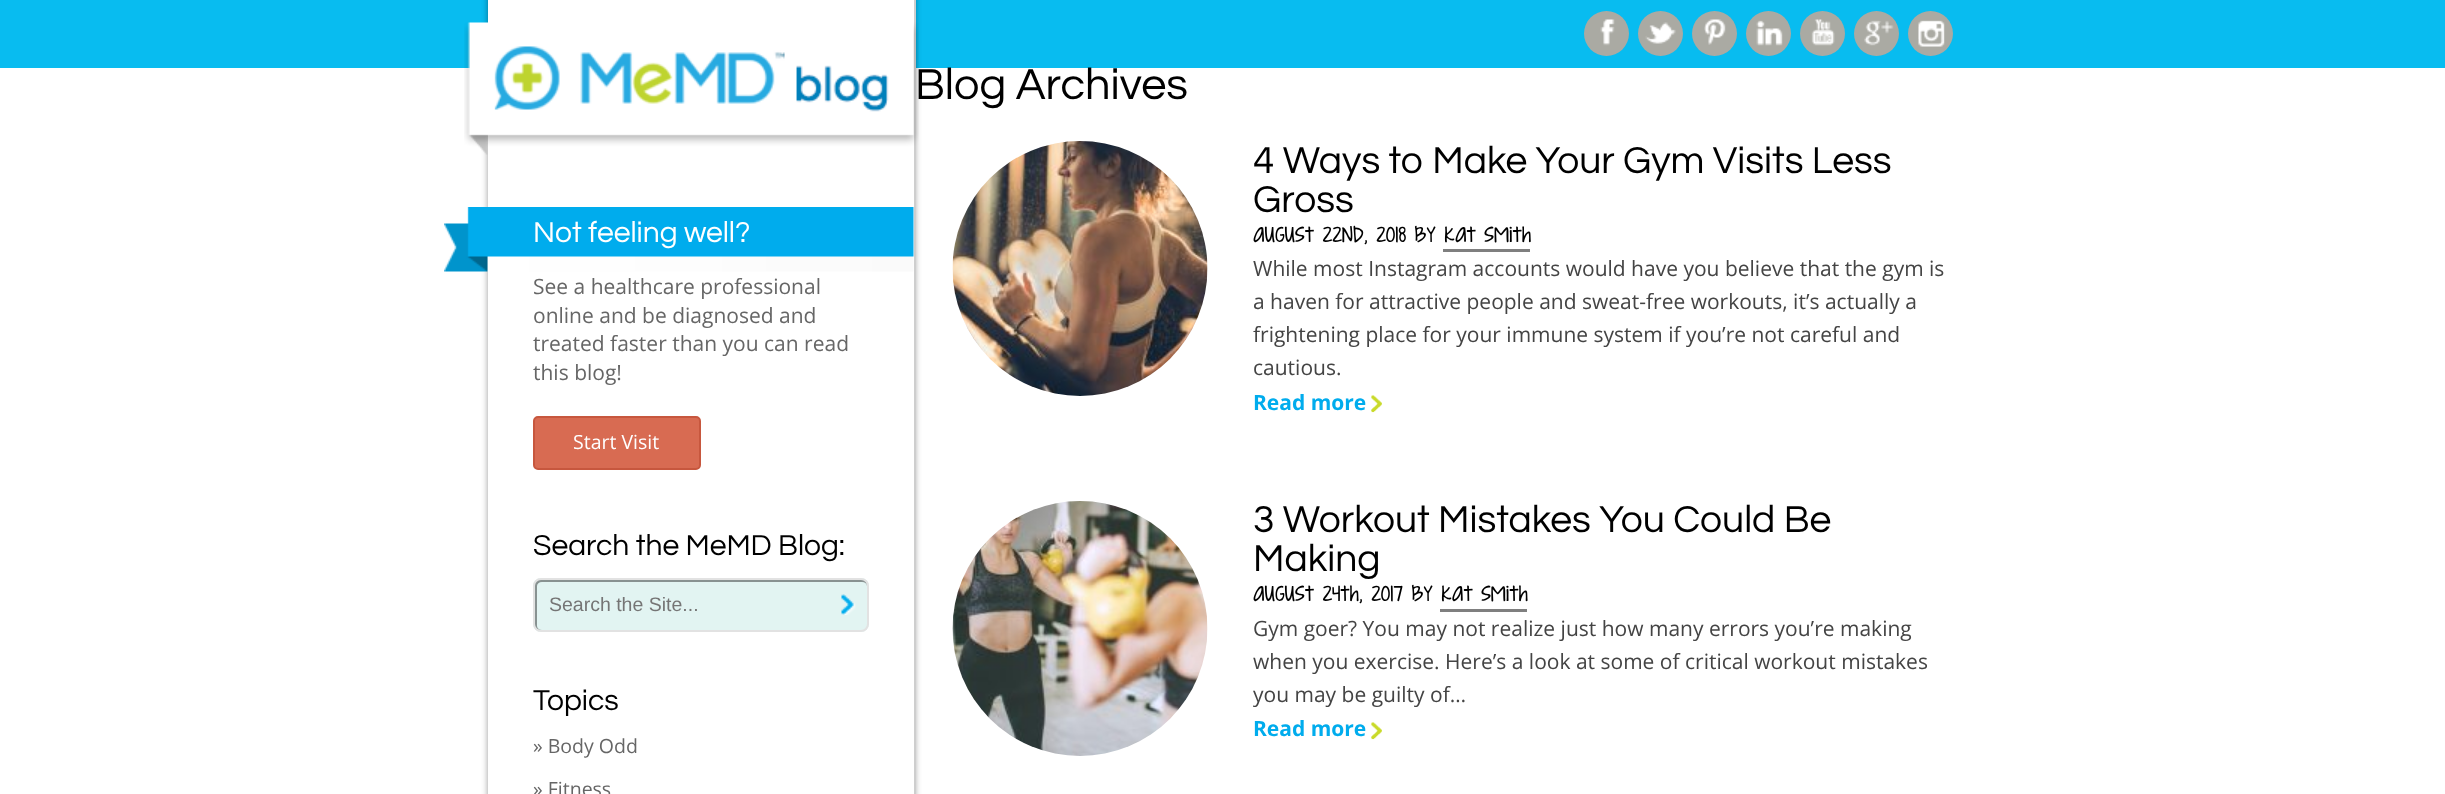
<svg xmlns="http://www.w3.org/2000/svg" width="2445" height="794">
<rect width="100%" height="100%" fill="#fff"/>
<rect width="2445" height="68" fill="#08bcf0"/>
<circle cx="1606.5" cy="33.5" r="22.5" fill="#aaaaa3"/>
<image x="1600" y="19" width="15" height="27" href="media/1.png"/>
<circle cx="1660.5" cy="33.5" r="22.5" fill="#aaaaa3"/>
<image x="1645" y="22" width="31" height="22" href="media/2.png"/>
<circle cx="1714.5" cy="33.5" r="22.5" fill="#aaaaa3"/>
<image x="1704" y="19" width="22" height="26" href="media/3.png"/>
<circle cx="1768.5" cy="33.5" r="22.5" fill="#aaaaa3"/>
<image x="1756" y="20" width="27" height="26" href="media/4.png"/>
<circle cx="1822.5" cy="33.5" r="22.5" fill="#aaaaa3"/>
<image x="1811" y="19" width="24" height="27" href="media/5.png"/>
<circle cx="1876.5" cy="33.5" r="22.5" fill="#aaaaa3"/>
<image x="1864" y="20" width="30" height="26" href="media/6.png"/>
<circle cx="1930.5" cy="33.5" r="22.5" fill="#aaaaa3"/>
<image x="1918" y="20" width="27" height="27" href="media/7.png"/>
<rect x="488" y="-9" width="427" height="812" fill="#00000066" filter="blur(3px)"/>
<rect x="488" width="426" height="794" fill="#fff"/>
<rect x="914" width="2" height="794" fill="#cecece"/>
<text x="915" y="99" style="font-family:Questrial;font-size:45px;fill:#000">Blog Archives</text>
<image x="464" y="22" width="455" height="133" href="media/8.png"/>
<image x="444" y="207" width="470" height="65" href="media/9.png"/>
<text x="533" y="242" style="font-family:Questrial;font-size:30px;fill:#fff">Not feeling well?</text>
<text x="533" y="294" style="font-family:Open Sans;font-size:21px;fill:#666">See a healthcare professional</text>
<text x="533" y="323" style="font-family:Open Sans;font-size:21px;fill:#666">online and be diagnosed and</text>
<text x="533" y="351" style="font-family:Open Sans;font-size:21px;fill:#666">treated faster than you can read</text>
<text x="533" y="380" style="font-family:Open Sans;font-size:21px;fill:#666">this blog!</text>
<rect x="534" y="417" width="166" height="52" rx="4" fill="#d86b52" stroke="#c7573e" stroke-width="2"/>
<text x="573" y="449" style="font-family:Open Sans;font-size:19.5px;fill:#fff">Start Visit</text>
<text x="533" y="555" style="font-family:Questrial;font-size:30px;fill:#000">Search the MeMD Blog:</text>
<rect x="533" y="578" width="336" height="54" rx="8" fill="#e2f4f2"/>
<path d="M542 582h320c3 0 5 2 5 4v-1c0-3-3-6-6-6h-321c-3 0-6 3-6 6v39c0 3 3 6 6 6h2c-3 0-5-2-5-4v-40c0-2 2-4 5-4z" fill="#889291"/>
<rect x="534" y="579" width="334" height="52" rx="7" fill="none" stroke="#e2e2e2" stroke-width="2"/>
<text x="549" y="611" style="font-family:Liberation Sans;font-size:19.5px;fill:#757575">Search the Site...</text>
<image x="841" y="594" width="15" height="21" href="media/10.png"/>
<text x="533" y="710" style="font-family:Questrial;font-size:30px;fill:#000">Topics</text>
<text x="533" y="753" style="font-family:Open Sans;font-size:19.5px;fill:#666">» Body Odd</text>
<text x="533" y="796" style="font-family:Open Sans;font-size:19.5px;fill:#666">» Fitness</text>
<image x="952" y="141" width="256" height="255" href="media/11.png"/>
<text x="1253" y="173" style="font-family:Questrial;font-size:39px;fill:#000">4 Ways to Make Your Gym Visits Less</text>
<text x="1253" y="212" style="font-family:Questrial;font-size:39px;fill:#000">Gross</text>
<text x="1253" y="242" style="font-family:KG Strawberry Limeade;font-size:28.5px;fill:#000">august 22nd, 2018 by kat smith</text>
<rect x="1443" y="249" width="87" height="3" fill="#7f7f7f"/>
<text x="1253" y="276" style="font-family:Open Sans;font-size:21px;fill:#444">While most Instagram accounts would have you believe that the gym is</text>
<text x="1253" y="309" style="font-family:Open Sans;font-size:21px;fill:#444">a haven for attractive people and sweat-free workouts, it’s actually a</text>
<text x="1253" y="342" style="font-family:Open Sans;font-size:21px;fill:#444">frightening place for your immune system if you’re not careful and</text>
<text x="1253" y="375" style="font-family:Open Sans;font-size:21px;fill:#444">cautious.</text>
<text x="1253" y="410" style="font-family:Open Sans;font-size:21px;font-weight:bold;fill:#00aced">Read more</text>
<image x="1371" y="395" width="11" height="18" href="media/12.png"/>
<image x="952" y="501" width="256" height="255" href="media/13.png"/>
<text x="1253" y="532" style="font-family:Questrial;font-size:39px;fill:#000">3 Workout Mistakes You Could Be</text>
<text x="1253" y="571" style="font-family:Questrial;font-size:39px;fill:#000">Making</text>
<text x="1253" y="601" style="font-family:KG Strawberry Limeade;font-size:28.5px;fill:#000">august 24th, 2017 by kat smith</text>
<rect x="1440" y="609" width="87" height="3" fill="#7f7f7f"/>
<text x="1253" y="636" style="font-family:Open Sans;font-size:21px;fill:#444">Gym goer? You may not realize just how many errors you’re making</text>
<text x="1253" y="669" style="font-family:Open Sans;font-size:21px;fill:#444">when you exercise. Here’s a look at some of critical workout mistakes</text>
<text x="1253" y="702" style="font-family:Open Sans;font-size:21px;fill:#444">you may be guilty of…</text>
<text x="1253" y="736" style="font-family:Open Sans;font-size:21px;font-weight:bold;fill:#00aced">Read more</text>
<image x="1371" y="722" width="11" height="18" href="media/12.png"/>
</svg>
